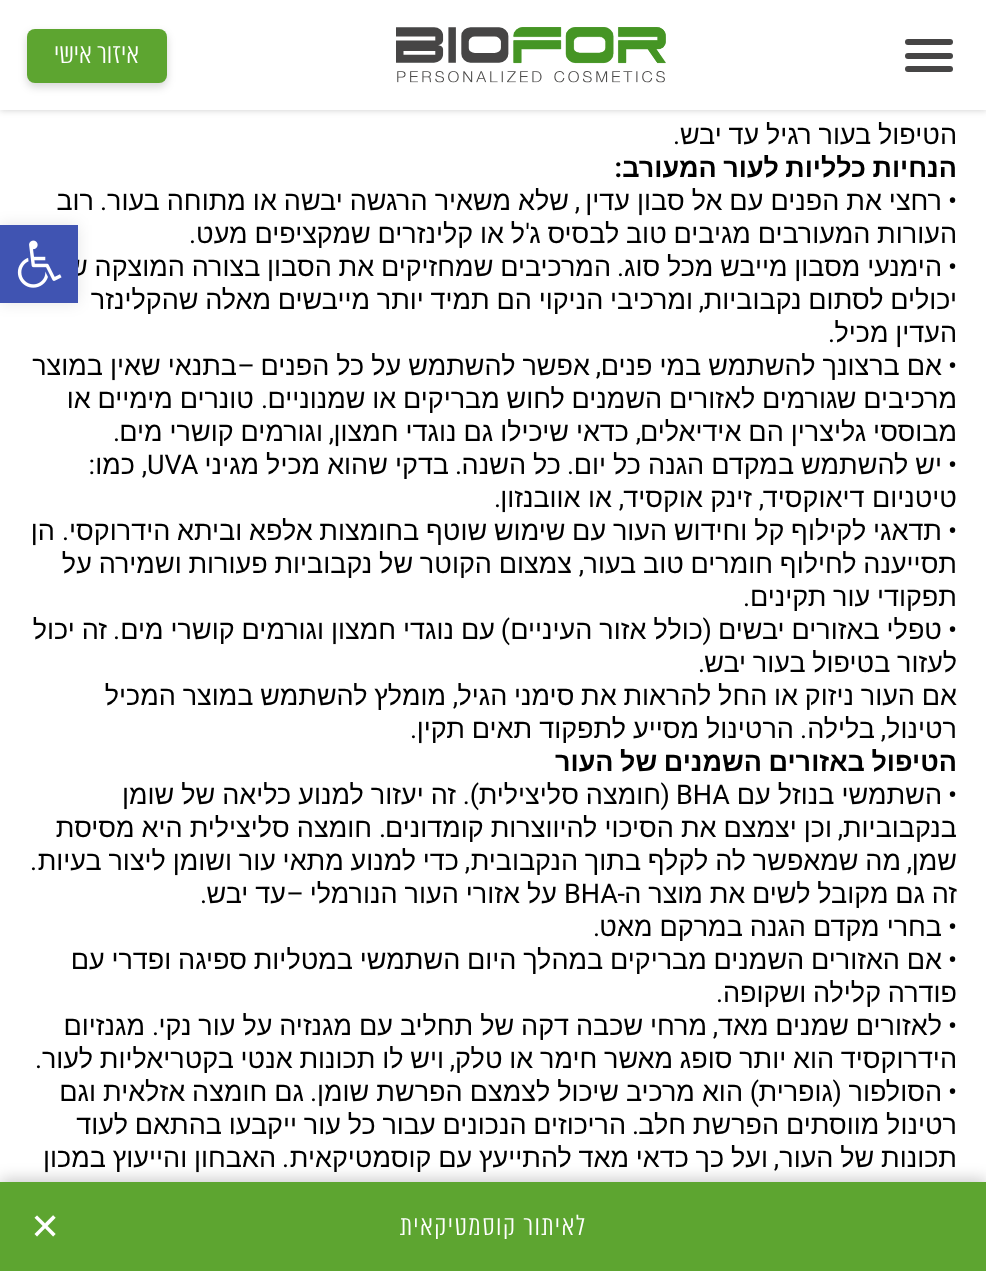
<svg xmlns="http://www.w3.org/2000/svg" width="986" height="1271">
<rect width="100%" height="100%" fill="#fff"/>
<rect width="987" height="110" fill="#00000033" filter="blur(3.5px)"/>
<rect width="986" height="110" fill="#fff"/>
<rect x="905" y="39" width="48" height="6" rx="3" fill="#464545"/>
<rect x="905" y="53" width="48" height="6" rx="3" fill="#464545"/>
<rect x="905" y="66" width="48" height="6" rx="3" fill="#464545"/>
<image x="396" y="27" width="270" height="56" href="media/1.png"/>
<rect x="27" y="33" width="140" height="54" rx="8" fill="#00000029" filter="blur(4.5px)"/>
<rect x="27" y="29" width="140" height="54" rx="8" fill="#5da530"/>
<text x="139" y="63" style="font-family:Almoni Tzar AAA;font-size:27px;font-weight:300;direction:rtl;fill:#fff">איזור אישי</text>
<text x="957" y="144" word-spacing="-0.75" style="font-family:Liberation Sans;font-size:27px;direction:rtl;fill:#000">הטיפול בעור רגיל עד יבש</text>
<text x="680" y="144" style="font-family:Roboto;font-size:27px;direction:rtl;fill:#000">.</text>
<text x="957" y="177" word-spacing="-1" style="font-family:Liberation Sans;font-size:27px;font-weight:bold;direction:rtl;fill:#000">הנחיות כלליות לעור המעורב</text>
<text x="622" y="177" style="font-family:Roboto;font-size:27px;font-weight:bold;direction:rtl;fill:#000">:</text>
<text x="957" y="210" style="font-family:Roboto;font-size:27px;direction:rtl;fill:#000">•</text>
<text x="942" y="210" word-spacing="-0.5" style="font-family:Liberation Sans;font-size:27px;direction:rtl;fill:#000">רחצי את הפנים עם אל סבון עדין</text>
<text x="569" y="210" word-spacing="-0.5" style="font-family:Liberation Sans;font-size:27px;direction:rtl;fill:#000">שלא משאיר הרגשה יבשה או מתוחה בעור</text>
<text x="94" y="210" style="font-family:Liberation Sans;font-size:27px;direction:rtl;fill:#000">רוב</text>
<text x="580" y="210" style="font-family:Roboto;font-size:27px;direction:rtl;fill:#000">,</text>
<text x="107" y="210" style="font-family:Roboto;font-size:27px;direction:rtl;fill:#000">.</text>
<text x="957" y="243" word-spacing="-0.75" style="font-family:Liberation Sans;font-size:27px;direction:rtl;fill:#000">העורות המעורבים מגיבים טוב לבסיס ג</text>
<text x="525" y="243" word-spacing="-0.75" style="font-family:Liberation Sans;font-size:27px;direction:rtl;fill:#000">ל או קלינזרים שמקציפים מעט</text>
<text x="530" y="243" style="font-family:Roboto;font-size:27px;direction:rtl;fill:#000">'</text>
<text x="196" y="243" style="font-family:Roboto;font-size:27px;direction:rtl;fill:#000">.</text>
<text x="957" y="276" style="font-family:Roboto;font-size:27px;direction:rtl;fill:#000">•</text>
<text x="942" y="276" word-spacing="-0.75" style="font-family:Liberation Sans;font-size:27px;direction:rtl;fill:#000">הימנעי מסבון מייבש מכל סוג</text>
<text x="611" y="276" word-spacing="-0.75" style="font-family:Liberation Sans;font-size:27px;direction:rtl;fill:#000">המרכיבים שמחזיקים את הסבון בצורה המוצקה שלו</text>
<text x="624" y="276" style="font-family:Roboto;font-size:27px;direction:rtl;fill:#000">.</text>
<text x="957" y="309" word-spacing="-0.75" style="font-family:Liberation Sans;font-size:27px;direction:rtl;fill:#000">יכולים לסתום נקבוביות</text>
<text x="704" y="309" style="font-family:Roboto;font-size:27px;direction:rtl;fill:#000">,</text>
<text x="693" y="309" word-spacing="-0.75" style="font-family:Liberation Sans;font-size:27px;direction:rtl;fill:#000">ומרכיבי הניקוי הם תמיד יותר מייבשים מאלה שהקלינזר</text>
<text x="957" y="342" word-spacing="-0.75" style="font-family:Liberation Sans;font-size:27px;direction:rtl;fill:#000">העדין מכיל</text>
<text x="835" y="342" style="font-family:Roboto;font-size:27px;direction:rtl;fill:#000">.</text>
<text x="957" y="375" style="font-family:Roboto;font-size:27px;direction:rtl;fill:#000">•</text>
<text x="942" y="375" word-spacing="-0.5" style="font-family:Liberation Sans;font-size:27px;direction:rtl;fill:#000">אם ברצונך להשתמש במי פנים</text>
<text x="590" y="375" word-spacing="-0.5" style="font-family:Liberation Sans;font-size:27px;direction:rtl;fill:#000">אפשר להשתמש על כל הפנים</text>
<text x="255" y="375" style="font-family:Roboto;font-size:27px;direction:rtl;fill:#000">–</text>
<text x="237" y="375" word-spacing="-0.5" style="font-family:Liberation Sans;font-size:27px;direction:rtl;fill:#000">בתנאי שאין במוצר</text>
<text x="601" y="375" style="font-family:Roboto;font-size:27px;direction:rtl;fill:#000">,</text>
<text x="957" y="408" word-spacing="-0.75" style="font-family:Liberation Sans;font-size:27px;direction:rtl;fill:#000">מרכיבים שגורמים לאזורים השמנים לחוש מבריקים או שמנוניים</text>
<text x="268" y="408" style="font-family:Roboto;font-size:27px;direction:rtl;fill:#000">.</text>
<text x="254" y="408" word-spacing="-0.75" style="font-family:Liberation Sans;font-size:27px;direction:rtl;fill:#000">טונרים מימיים או</text>
<text x="957" y="441" word-spacing="-0.5" style="font-family:Liberation Sans;font-size:27px;direction:rtl;fill:#000">מבוססי גליצרין הם אידיאלים</text>
<text x="641" y="441" style="font-family:Roboto;font-size:27px;direction:rtl;fill:#000">,</text>
<text x="629" y="441" word-spacing="-0.5" style="font-family:Liberation Sans;font-size:27px;direction:rtl;fill:#000">כדאי שיכילו גם נוגדי חמצון</text>
<text x="334" y="441" style="font-family:Roboto;font-size:27px;direction:rtl;fill:#000">,</text>
<text x="323" y="441" word-spacing="-0.5" style="font-family:Liberation Sans;font-size:27px;direction:rtl;fill:#000">וגורמים קושרי מים</text>
<text x="120" y="441" style="font-family:Roboto;font-size:27px;direction:rtl;fill:#000">.</text>
<text x="957" y="474" style="font-family:Roboto;font-size:27px;direction:rtl;fill:#000">•</text>
<text x="942" y="474" word-spacing="-0.5" style="font-family:Liberation Sans;font-size:27px;direction:rtl;fill:#000">יש להשתמש במקדם הגנה כל יום</text>
<text x="561" y="474" word-spacing="-0.5" style="font-family:Liberation Sans;font-size:27px;direction:rtl;fill:#000">כל השנה</text>
<text x="449" y="474" word-spacing="-0.5" style="font-family:Liberation Sans;font-size:27px;direction:rtl;fill:#000">בדקי שהוא מכיל מגיני</text>
<text x="147" y="474" style="font-family:Roboto;font-size:27px;fill:#000">UVA</text>
<text x="135" y="474" style="font-family:Liberation Sans;font-size:27px;direction:rtl;fill:#000">כמו</text>
<text x="95" y="474" style="font-family:Roboto;font-size:27px;direction:rtl;fill:#000">:</text>
<text x="574" y="474" style="font-family:Roboto;font-size:27px;direction:rtl;fill:#000">.</text>
<text x="462" y="474" style="font-family:Roboto;font-size:27px;direction:rtl;fill:#000">.</text>
<text x="147" y="474" style="font-family:Roboto;font-size:27px;direction:rtl;fill:#000">,</text>
<text x="957" y="507" style="font-family:Liberation Sans;font-size:27px;direction:rtl;fill:#000">טיטניום דיאוקסיד</text>
<text x="764" y="507" style="font-family:Roboto;font-size:27px;direction:rtl;fill:#000">,</text>
<text x="752" y="507" style="font-family:Liberation Sans;font-size:27px;direction:rtl;fill:#000">זינק אוקסיד</text>
<text x="624" y="507" style="font-family:Roboto;font-size:27px;direction:rtl;fill:#000">,</text>
<text x="612" y="507" style="font-family:Liberation Sans;font-size:27px;direction:rtl;fill:#000">או אוובנזון</text>
<text x="501" y="507" style="font-family:Roboto;font-size:27px;direction:rtl;fill:#000">.</text>
<text x="957" y="540" style="font-family:Roboto;font-size:27px;direction:rtl;fill:#000">•</text>
<text x="942" y="540" word-spacing="-0.75" style="font-family:Liberation Sans;font-size:27px;direction:rtl;fill:#000">תדאגי לקילוף קל וחידוש העור עם שימוש שוטף בחומצות אלפא וביתא הידרוקסי</text>
<text x="55" y="540" style="font-family:Liberation Sans;font-size:27px;direction:rtl;fill:#000">הן</text>
<text x="69" y="540" style="font-family:Roboto;font-size:27px;direction:rtl;fill:#000">.</text>
<text x="957" y="573" word-spacing="-0.75" style="font-family:Liberation Sans;font-size:27px;direction:rtl;fill:#000">תסייענה לחילוף חומרים טוב בעור</text>
<text x="584" y="573" style="font-family:Roboto;font-size:27px;direction:rtl;fill:#000">,</text>
<text x="572" y="573" word-spacing="-0.75" style="font-family:Liberation Sans;font-size:27px;direction:rtl;fill:#000">צמצום הקוטר של נקבוביות פעורות ושמירה על</text>
<text x="957" y="606" word-spacing="-0.75" style="font-family:Liberation Sans;font-size:27px;direction:rtl;fill:#000">תפקודי עור תקינים</text>
<text x="750" y="606" style="font-family:Roboto;font-size:27px;direction:rtl;fill:#000">.</text>
<text x="957" y="639" style="font-family:Roboto;font-size:27px;direction:rtl;fill:#000">•</text>
<text x="942" y="639" word-spacing="-0.5" style="font-family:Liberation Sans;font-size:27px;direction:rtl;fill:#000">טפלי באזורים יבשים</text>
<text x="712" y="639" style="font-family:Roboto;font-size:27px;direction:rtl;fill:#000">(</text>
<text x="703" y="639" word-spacing="-0.5" style="font-family:Liberation Sans;font-size:27px;direction:rtl;fill:#000">כולל אזור העיניים</text>
<text x="510" y="639" style="font-family:Roboto;font-size:27px;direction:rtl;fill:#000">)</text>
<text x="495" y="639" word-spacing="-0.5" style="font-family:Liberation Sans;font-size:27px;direction:rtl;fill:#000">עם נוגדי חמצון וגורמים קושרי מים</text>
<text x="107" y="639" word-spacing="-0.5" style="font-family:Liberation Sans;font-size:27px;direction:rtl;fill:#000">זה יכול</text>
<text x="120" y="639" style="font-family:Roboto;font-size:27px;direction:rtl;fill:#000">.</text>
<text x="957" y="672" word-spacing="-0.75" style="font-family:Liberation Sans;font-size:27px;direction:rtl;fill:#000">לעזור בטיפול בעור יבש</text>
<text x="705" y="672" style="font-family:Roboto;font-size:27px;direction:rtl;fill:#000">.</text>
<text x="957" y="705" word-spacing="-0.75" style="font-family:Liberation Sans;font-size:27px;direction:rtl;fill:#000">אם העור ניזוק או החל להראות את סימני הגיל</text>
<text x="458" y="705" style="font-family:Roboto;font-size:27px;direction:rtl;fill:#000">,</text>
<text x="446" y="705" word-spacing="-0.75" style="font-family:Liberation Sans;font-size:27px;direction:rtl;fill:#000">מומלץ להשתמש במוצר המכיל</text>
<text x="957" y="738" style="font-family:Liberation Sans;font-size:27px;direction:rtl;fill:#000">רטינול</text>
<text x="886" y="738" style="font-family:Roboto;font-size:27px;direction:rtl;fill:#000">,</text>
<text x="875" y="738" style="font-family:Liberation Sans;font-size:27px;direction:rtl;fill:#000">בלילה</text>
<text x="807" y="738" style="font-family:Roboto;font-size:27px;direction:rtl;fill:#000">.</text>
<text x="794" y="738" word-spacing="-0.5" style="font-family:Liberation Sans;font-size:27px;direction:rtl;fill:#000">הרטינול מסייע לתפקוד תאים תקין</text>
<text x="417" y="738" style="font-family:Roboto;font-size:27px;direction:rtl;fill:#000">.</text>
<text x="957" y="771" word-spacing="-1" style="font-family:Liberation Sans;font-size:27px;font-weight:bold;direction:rtl;fill:#000">הטיפול באזורים השמנים של העור</text>
<text x="957" y="804" style="font-family:Roboto;font-size:27px;direction:rtl;fill:#000">•</text>
<text x="942" y="804" word-spacing="-0.5" style="font-family:Liberation Sans;font-size:27px;direction:rtl;fill:#000">השתמשי בנוזל עם</text>
<text x="676" y="804" style="font-family:Roboto;font-size:27px;fill:#000">BHA</text>
<text x="670" y="804" style="font-family:Roboto;font-size:27px;direction:rtl;fill:#000">(</text>
<text x="661" y="804" word-spacing="-0.5" style="font-family:Liberation Sans;font-size:27px;direction:rtl;fill:#000">חומצה סליצילית</text>
<text x="479" y="804" style="font-family:Roboto;font-size:27px;direction:rtl;fill:#000">).</text>
<text x="456" y="804" word-spacing="-0.5" style="font-family:Liberation Sans;font-size:27px;direction:rtl;fill:#000">זה יעזור למנוע כליאה של שומן</text>
<text x="957" y="837" style="font-family:Liberation Sans;font-size:27px;direction:rtl;fill:#000">בנקבוביות</text>
<text x="843" y="837" style="font-family:Roboto;font-size:27px;direction:rtl;fill:#000">,</text>
<text x="832" y="837" word-spacing="-0.5" style="font-family:Liberation Sans;font-size:27px;direction:rtl;fill:#000">וכן יצמצם את הסיכוי להיווצרות קומדונים</text>
<text x="386" y="837" style="font-family:Roboto;font-size:27px;direction:rtl;fill:#000">.</text>
<text x="372" y="837" word-spacing="-0.5" style="font-family:Liberation Sans;font-size:27px;direction:rtl;fill:#000">חומצה סליצילית היא מסיסת</text>
<text x="957" y="870" style="font-family:Liberation Sans;font-size:27px;direction:rtl;fill:#000">שמן</text>
<text x="912" y="870" style="font-family:Roboto;font-size:27px;direction:rtl;fill:#000">,</text>
<text x="901" y="870" word-spacing="-0.75" style="font-family:Liberation Sans;font-size:27px;direction:rtl;fill:#000">מה שמאפשר לה לקלף בתוך הנקבובית</text>
<text x="470" y="870" style="font-family:Roboto;font-size:27px;direction:rtl;fill:#000">,</text>
<text x="459" y="870" word-spacing="-0.75" style="font-family:Liberation Sans;font-size:27px;direction:rtl;fill:#000">כדי למנוע מתאי עור ושומן ליצור בעיות</text>
<text x="37" y="870" style="font-family:Roboto;font-size:27px;direction:rtl;fill:#000">.</text>
<text x="957" y="903" word-spacing="-0.75" style="font-family:Liberation Sans;font-size:27px;direction:rtl;fill:#000">זה גם מקובל לשים את מוצר ה</text>
<text x="625" y="903" style="font-family:Roboto;font-size:27px;direction:rtl;fill:#000">-</text>
<text x="564" y="903" style="font-family:Roboto;font-size:27px;fill:#000">BHA</text>
<text x="557" y="903" word-spacing="-0.5" style="font-family:Liberation Sans;font-size:27px;direction:rtl;fill:#000">על אזורי העור הנורמלי</text>
<text x="304" y="903" style="font-family:Roboto;font-size:27px;direction:rtl;fill:#000">–</text>
<text x="286" y="903" word-spacing="-0.5" style="font-family:Liberation Sans;font-size:27px;direction:rtl;fill:#000">עד יבש</text>
<text x="207" y="903" style="font-family:Roboto;font-size:27px;direction:rtl;fill:#000">.</text>
<text x="957" y="936" style="font-family:Roboto;font-size:27px;direction:rtl;fill:#000">•</text>
<text x="942" y="936" word-spacing="-0.5" style="font-family:Liberation Sans;font-size:27px;direction:rtl;fill:#000">בחרי מקדם הגנה במרקם מאט</text>
<text x="600" y="936" style="font-family:Roboto;font-size:27px;direction:rtl;fill:#000">.</text>
<text x="957" y="969" style="font-family:Roboto;font-size:27px;direction:rtl;fill:#000">•</text>
<text x="942" y="969" word-spacing="-0.75" style="font-family:Liberation Sans;font-size:27px;direction:rtl;fill:#000">אם האזורים השמנים מבריקים במהלך היום השתמשי במטליות ספיגה ופדרי עם</text>
<text x="957" y="1002" word-spacing="-0.75" style="font-family:Liberation Sans;font-size:27px;direction:rtl;fill:#000">פודרה קלילה ושקופה</text>
<text x="723" y="1002" style="font-family:Roboto;font-size:27px;direction:rtl;fill:#000">.</text>
<text x="957" y="1035" style="font-family:Roboto;font-size:27px;direction:rtl;fill:#000">•</text>
<text x="942" y="1035" word-spacing="-0.6" style="font-family:Liberation Sans;font-size:27px;direction:rtl;fill:#000">לאזורים שמנים מאד</text>
<text x="707" y="1035" word-spacing="-0.6" style="font-family:Liberation Sans;font-size:27px;direction:rtl;fill:#000">מרחי שכבה דקה של תחליב עם מגנזיה על עור נקי</text>
<text x="145" y="1035" style="font-family:Liberation Sans;font-size:27px;direction:rtl;fill:#000">מגנזיום</text>
<text x="718" y="1035" style="font-family:Roboto;font-size:27px;direction:rtl;fill:#000">,</text>
<text x="159" y="1035" style="font-family:Roboto;font-size:27px;direction:rtl;fill:#000">.</text>
<text x="957" y="1068" word-spacing="-0.75" style="font-family:Liberation Sans;font-size:27px;direction:rtl;fill:#000">הידרוקסיד הוא יותר סופג מאשר חימר או טלק</text>
<text x="455" y="1068" style="font-family:Roboto;font-size:27px;direction:rtl;fill:#000">,</text>
<text x="444" y="1068" word-spacing="-0.75" style="font-family:Liberation Sans;font-size:27px;direction:rtl;fill:#000">ויש לו תכונות אנטי בקטריאליות לעור</text>
<text x="42" y="1068" style="font-family:Roboto;font-size:27px;direction:rtl;fill:#000">.</text>
<text x="957" y="1101" style="font-family:Roboto;font-size:27px;direction:rtl;fill:#000">•</text>
<text x="942" y="1101" style="font-family:Liberation Sans;font-size:27px;direction:rtl;fill:#000">הסולפור</text>
<text x="842" y="1101" style="font-family:Roboto;font-size:27px;direction:rtl;fill:#000">(</text>
<text x="833" y="1101" style="font-family:Liberation Sans;font-size:27px;direction:rtl;fill:#000">גופרית</text>
<text x="759" y="1101" style="font-family:Roboto;font-size:27px;direction:rtl;fill:#000">)</text>
<text x="743" y="1101" word-spacing="-0.5" style="font-family:Liberation Sans;font-size:27px;direction:rtl;fill:#000">הוא מרכיב שיכול לצמצם הפרשת שומן</text>
<text x="304" y="1101" word-spacing="-0.5" style="font-family:Liberation Sans;font-size:27px;direction:rtl;fill:#000">גם חומצה אזלאית וגם</text>
<text x="317" y="1101" style="font-family:Roboto;font-size:27px;direction:rtl;fill:#000">.</text>
<text x="957" y="1134" word-spacing="-0.75" style="font-family:Liberation Sans;font-size:27px;direction:rtl;fill:#000">רטינול מווסתים הפרשת חלב</text>
<text x="639" y="1134" style="font-family:Roboto;font-size:27px;direction:rtl;fill:#000">.</text>
<text x="626" y="1134" word-spacing="-0.75" style="font-family:Liberation Sans;font-size:27px;direction:rtl;fill:#000">הריכוזים הנכונים עבור כל עור ייקבעו בהתאם לעוד</text>
<text x="957" y="1167" word-spacing="-0.75" style="font-family:Liberation Sans;font-size:27px;direction:rtl;fill:#000">תכונות של העור</text>
<text x="779" y="1167" style="font-family:Roboto;font-size:27px;direction:rtl;fill:#000">,</text>
<text x="768" y="1167" word-spacing="-0.75" style="font-family:Liberation Sans;font-size:27px;direction:rtl;fill:#000">ועל כך כדאי מאד להתייעץ עם קוסמטיקאית</text>
<text x="289" y="1167" style="font-family:Roboto;font-size:27px;direction:rtl;fill:#000">.</text>
<text x="276" y="1167" word-spacing="-0.75" style="font-family:Liberation Sans;font-size:27px;direction:rtl;fill:#000">האבחון והייעוץ במכון</text>
<rect y="225" width="78" height="78" fill="#0000001a" filter="blur(7.5px)"/>
<rect y="225" width="78" height="78" fill="#4054b2"/>
<image x="17" y="240" width="45" height="48" href="media/2.png"/>
<rect y="1179" width="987" height="90" fill="#00000033" filter="blur(7.5px)"/>
<rect y="1182" width="986" height="89" fill="#5da530"/>
<text x="587" y="1235" style="font-family:Almoni Tzar AAA;font-size:27px;font-weight:300;letter-spacing:1.5px;direction:rtl;fill:#fff">לאיתור קוסמטיקאית</text>
<text x="30" y="1239" style="font-family:DejaVu Sans;font-size:36px;fill:#fff">✕</text>
</svg>
